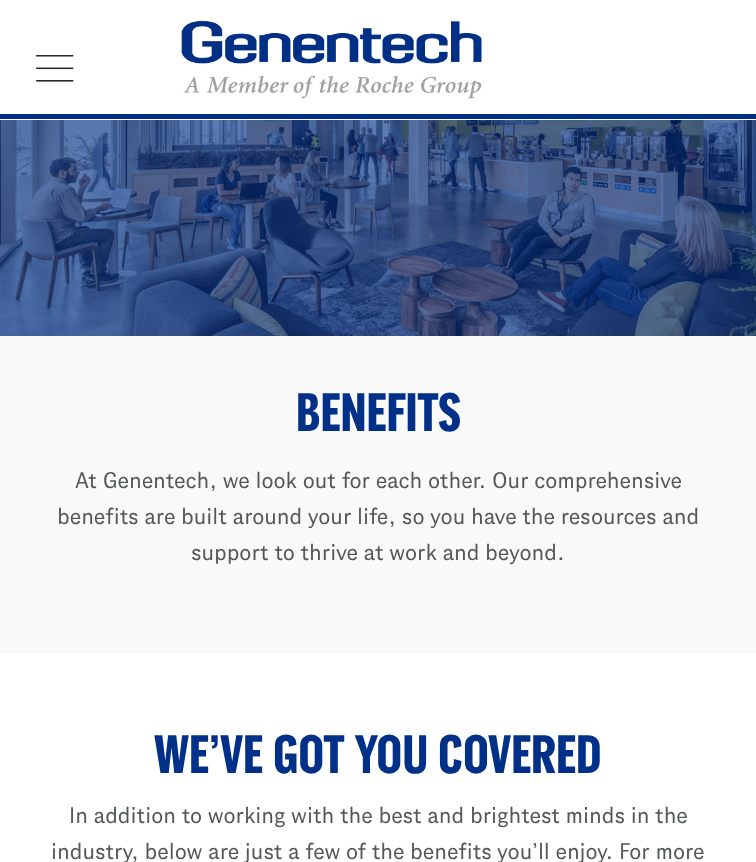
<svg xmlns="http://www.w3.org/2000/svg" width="756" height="862">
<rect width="100%" height="100%" fill="#fff"/>
<rect y="114" width="756" height="5" fill="#003087"/>
<image x="36" y="55" width="38" height="27" href="media/1.png"/>
<image x="181" y="20" width="301" height="79" href="media/2.png"/>
<rect y="336" width="756" height="317" fill="#f9f9f9"/>
<image x="0" y="120" width="756" height="216" href="media/3.png"/>
<text x="296" y="431" style="font-family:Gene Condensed;font-size:54px;font-weight:900;fill:#003087">BENEFITS</text>
<text x="75" y="488" style="font-family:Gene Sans;font-size:22.5px;fill:#545859">At Genentech, we look out for each other. Our comprehensive</text>
<text x="57" y="524" style="font-family:Gene Sans;font-size:22.5px;fill:#545859">benefits are built around your life, so you have the resources and</text>
<text x="191" y="560" style="font-family:Gene Sans;font-size:22.5px;fill:#545859">support to thrive at work and beyond.</text>
<text x="154" y="773" style="font-family:Gene Condensed;font-size:54px;font-weight:900;fill:#003087">WE’VE GOT YOU COVERED</text>
<text x="69" y="823" style="font-family:Gene Sans;font-size:22.5px;fill:#545859">In addition to working with the best and brightest minds in the</text>
<text x="51" y="859" style="font-family:Gene Sans;font-size:22.5px;fill:#545859">industry, below are just a few of the benefits you’ll enjoy. For more</text>
</svg>
